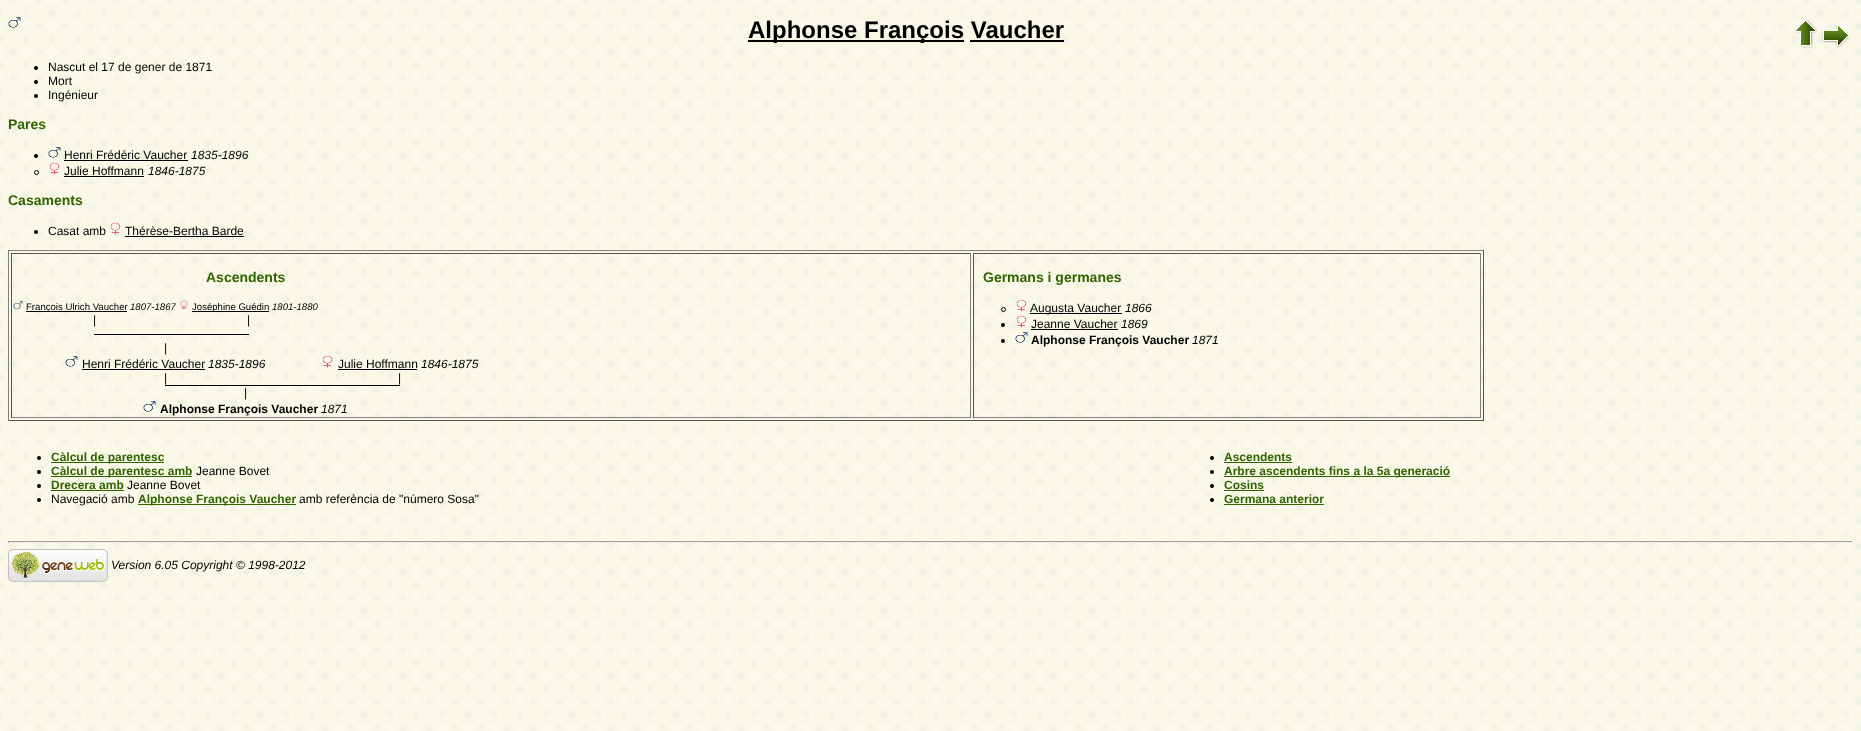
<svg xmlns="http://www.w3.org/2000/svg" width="1861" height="731">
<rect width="100%" height="100%" fill="#fff"/>
<image x="0" y="0" width="1861" height="731" href="media/1.png"/>
<image x="8" y="17" width="13" height="11" href="media/2.png"/>
<rect x="748" y="40" width="216" height="2" fill="#000"/>
<text x="748" y="38" style="font-family:Liberation Sans;font-size:24px;font-weight:bold;fill:#000">Alphonse François Vaucher</text>
<rect x="970" y="40" width="94" height="2" fill="#000"/>
<image x="1796" y="20" width="22" height="28" href="media/3.png"/>
<image x="1822" y="25" width="28" height="23" href="media/4.png"/>
<circle cx="36" cy="68" r="2" fill="#000"/>
<text x="48" y="71" style="font-family:Liberation Sans;font-size:12px;fill:#000">Nascut el 17 de gener de 1871</text>
<circle cx="36" cy="82" r="2" fill="#000"/>
<text x="48" y="85" style="font-family:Liberation Sans;font-size:12px;fill:#000">Mort</text>
<circle cx="36" cy="96" r="2" fill="#000"/>
<text x="48" y="99" style="font-family:Liberation Sans;font-size:12px;fill:#000">Ingénieur</text>
<text x="8" y="129" style="font-family:Liberation Sans;font-size:14px;font-weight:bold;fill:#2f6400">Pares</text>
<circle cx="36" cy="156" r="2" fill="#000"/>
<image x="48" y="147" width="13" height="11" href="media/5.png"/>
<text x="64" y="159" style="font-family:Liberation Sans;font-size:12px;fill:#000">Henri Frédéric Vaucher</text>
<rect x="64" y="160" width="124" height="1" fill="#000"/>
<text x="191" y="159" style="font-family:Liberation Sans;font-size:12px;font-style:italic;fill:#000">1835-1896</text>
<circle cx="36.5" cy="172.5" r="2" fill="none" stroke="#000"/>
<image x="49" y="162" width="11" height="13" href="media/6.png"/>
<text x="64" y="175" style="font-family:Liberation Sans;font-size:12px;fill:#000">Julie Hoffmann</text>
<rect x="64" y="176" width="80" height="1" fill="#000"/>
<text x="148" y="175" style="font-family:Liberation Sans;font-size:12px;font-style:italic;fill:#000">1846-1875</text>
<text x="8" y="205" style="font-family:Liberation Sans;font-size:14px;font-weight:bold;fill:#2f6400">Casaments</text>
<circle cx="36" cy="232" r="2" fill="#000"/>
<text x="48" y="235" style="font-family:Liberation Sans;font-size:12px;fill:#000">Casat amb</text>
<image x="110" y="222" width="11" height="13" href="media/7.png"/>
<text x="125" y="235" style="font-family:Liberation Sans;font-size:12px;fill:#000">Thérèse-Bertha Barde</text>
<rect x="125" y="236" width="119" height="1" fill="#000"/>
<rect x="8" y="250" width="1476" height="1" fill="#808080"/>
<rect x="1483" y="250" width="1" height="171" fill="#555"/>
<rect x="8" y="420" width="1476" height="1" fill="#555"/>
<rect x="8" y="250" width="1" height="171" fill="#808080"/>
<rect x="11" y="253" width="960" height="1" fill="#555"/>
<rect x="970" y="253" width="1" height="165" fill="#808080"/>
<rect x="11" y="417" width="960" height="1" fill="#808080"/>
<rect x="11" y="253" width="1" height="165" fill="#555"/>
<text x="206" y="282" style="font-family:Liberation Sans;font-size:14px;font-weight:bold;fill:#2f6400">Ascendents</text>
<image x="13" y="300" width="10" height="10" href="media/8.png"/>
<rect x="26" y="311" width="101" height="1" fill="#000"/>
<text x="26" y="310" style="font-family:Liberation Sans;font-size:9.6px;fill:#000">François Ulrich Vaucher</text>
<text x="130" y="310" style="font-family:Liberation Sans;font-size:9.6px;font-style:italic;fill:#000">1807-1867</text>
<image x="180" y="300" width="9" height="10" href="media/9.png"/>
<rect x="192" y="311" width="77" height="1" fill="#000"/>
<text x="192" y="310" style="font-family:Liberation Sans;font-size:9.6px;fill:#000">Joséphine Guédin</text>
<text x="272" y="310" style="font-family:Liberation Sans;font-size:9.6px;font-style:italic;fill:#000">1801-1880</text>
<text x="93" y="324" style="font-family:Liberation Sans;font-size:12px;fill:#000">|</text>
<text x="247" y="324" style="font-family:Liberation Sans;font-size:12px;fill:#000">|</text>
<rect x="94" y="334" width="155" height="1" fill="#000"/>
<text x="164" y="352" style="font-family:Liberation Sans;font-size:12px;fill:#000">|</text>
<image x="65" y="356" width="13" height="11" href="media/10.png"/>
<text x="82" y="368" style="font-family:Liberation Sans;font-size:12px;fill:#000">Henri Frédéric Vaucher</text>
<rect x="82" y="369" width="123" height="1" fill="#000"/>
<text x="208" y="368" style="font-family:Liberation Sans;font-size:12px;font-style:italic;fill:#000">1835-1896</text>
<image x="322" y="355" width="11" height="13" href="media/11.png"/>
<text x="338" y="368" style="font-family:Liberation Sans;font-size:12px;fill:#000">Julie Hoffmann</text>
<rect x="338" y="369" width="79" height="1" fill="#000"/>
<text x="421" y="368" style="font-family:Liberation Sans;font-size:12px;font-style:italic;fill:#000">1846-1875</text>
<text x="164" y="382" style="font-family:Liberation Sans;font-size:12px;fill:#000">|</text>
<text x="398" y="382" style="font-family:Liberation Sans;font-size:12px;fill:#000">|</text>
<rect x="165" y="385" width="235" height="1" fill="#000"/>
<text x="244" y="397" style="font-family:Liberation Sans;font-size:12px;fill:#000">|</text>
<image x="143" y="401" width="13" height="11" href="media/12.png"/>
<text x="160" y="413" style="font-family:Liberation Sans;font-size:12px;font-weight:bold;fill:#000">Alphonse François Vaucher</text>
<text x="321" y="413" style="font-family:Liberation Sans;font-size:12px;font-style:italic;fill:#000">1871</text>
<rect x="973" y="253" width="508" height="1" fill="#555"/>
<rect x="1480" y="253" width="1" height="165" fill="#808080"/>
<rect x="973" y="417" width="508" height="1" fill="#808080"/>
<rect x="973" y="253" width="1" height="165" fill="#555"/>
<text x="983" y="282" style="font-family:Liberation Sans;font-size:14px;font-weight:bold;fill:#2f6400">Germans i germanes</text>
<circle cx="1003.5" cy="309.5" r="2" fill="none" stroke="#000"/>
<image x="1016" y="299" width="11" height="13" href="media/13.png"/>
<rect x="1030" y="313" width="92" height="1" fill="#000"/>
<text x="1030" y="312" style="font-family:Liberation Sans;font-size:12px;fill:#000">Augusta Vaucher</text>
<text x="1125" y="312" style="font-family:Liberation Sans;font-size:12px;font-style:italic;fill:#000">1866</text>
<circle cx="1003" cy="325" r="2" fill="#000"/>
<image x="1016" y="315" width="11" height="13" href="media/14.png"/>
<text x="1031" y="328" style="font-family:Liberation Sans;font-size:12px;fill:#000">Jeanne Vaucher</text>
<rect x="1031" y="329" width="87" height="1" fill="#000"/>
<text x="1121" y="328" style="font-family:Liberation Sans;font-size:12px;font-style:italic;fill:#000">1869</text>
<circle cx="1003" cy="341" r="2" fill="#000"/>
<image x="1015" y="332" width="13" height="11" href="media/15.png"/>
<text x="1031" y="344" style="font-family:Liberation Sans;font-size:12px;font-weight:bold;fill:#000">Alphonse François Vaucher</text>
<text x="1192" y="344" style="font-family:Liberation Sans;font-size:12px;font-style:italic;fill:#000">1871</text>
<circle cx="39" cy="458" r="2" fill="#000"/>
<rect x="51" y="462" width="113" height="1" fill="#2f6400"/>
<text x="51" y="461" style="font-family:Liberation Sans;font-size:12px;font-weight:bold;fill:#2f6400">Càlcul de parentesc</text>
<circle cx="39" cy="472" r="2" fill="#000"/>
<rect x="51" y="476" width="141" height="1" fill="#2f6400"/>
<text x="51" y="475" style="font-family:Liberation Sans;font-size:12px;font-weight:bold;fill:#2f6400">Càlcul de parentesc amb</text>
<text x="196" y="475" style="font-family:Liberation Sans;font-size:12px;fill:#000">Jeanne Bovet</text>
<circle cx="39" cy="486" r="2" fill="#000"/>
<text x="51" y="489" style="font-family:Liberation Sans;font-size:12px;font-weight:bold;fill:#2f6400">Drecera amb</text>
<rect x="51" y="490" width="73" height="1" fill="#2f6400"/>
<text x="127" y="489" style="font-family:Liberation Sans;font-size:12px;fill:#000">Jeanne Bovet</text>
<circle cx="39" cy="500" r="2" fill="#000"/>
<text x="51" y="503" style="font-family:Liberation Sans;font-size:12px;fill:#000">Navegació amb</text>
<rect x="138" y="504" width="158" height="1" fill="#2f6400"/>
<text x="138" y="503" style="font-family:Liberation Sans;font-size:12px;font-weight:bold;fill:#2f6400">Alphonse François Vaucher</text>
<text x="299" y="503" style="font-family:Liberation Sans;font-size:12px;fill:#000">amb referència de "número Sosa"</text>
<circle cx="1212" cy="458" r="2" fill="#000"/>
<text x="1224" y="461" style="font-family:Liberation Sans;font-size:12px;font-weight:bold;fill:#2f6400">Ascendents</text>
<rect x="1224" y="462" width="68" height="1" fill="#2f6400"/>
<circle cx="1212" cy="472" r="2" fill="#000"/>
<rect x="1224" y="476" width="226" height="1" fill="#2f6400"/>
<text x="1224" y="475" style="font-family:Liberation Sans;font-size:12px;font-weight:bold;fill:#2f6400">Arbre ascendents fins a la 5a generació</text>
<circle cx="1212" cy="486" r="2" fill="#000"/>
<text x="1224" y="489" style="font-family:Liberation Sans;font-size:12px;font-weight:bold;fill:#2f6400">Cosins</text>
<rect x="1224" y="490" width="40" height="1" fill="#2f6400"/>
<circle cx="1212" cy="500" r="2" fill="#000"/>
<text x="1224" y="503" style="font-family:Liberation Sans;font-size:12px;font-weight:bold;fill:#2f6400">Germana anterior</text>
<rect x="1224" y="504" width="100" height="1" fill="#2f6400"/>
<rect x="8" y="541" width="1845" height="1" fill="#9f9f9f"/>
<rect x="1852" y="541" width="1" height="2" fill="#eee"/>
<rect x="8" y="542" width="1845" height="1" fill="#eee"/>
<rect x="8" y="541" width="1" height="2" fill="#9f9f9f"/>
<image x="8" y="549" width="100" height="33" href="media/16.png"/>
<text x="111" y="569" style="font-family:Liberation Sans;font-size:12px;font-style:italic;fill:#000">Version 6.05 Copyright © 1998-2012</text>
</svg>
